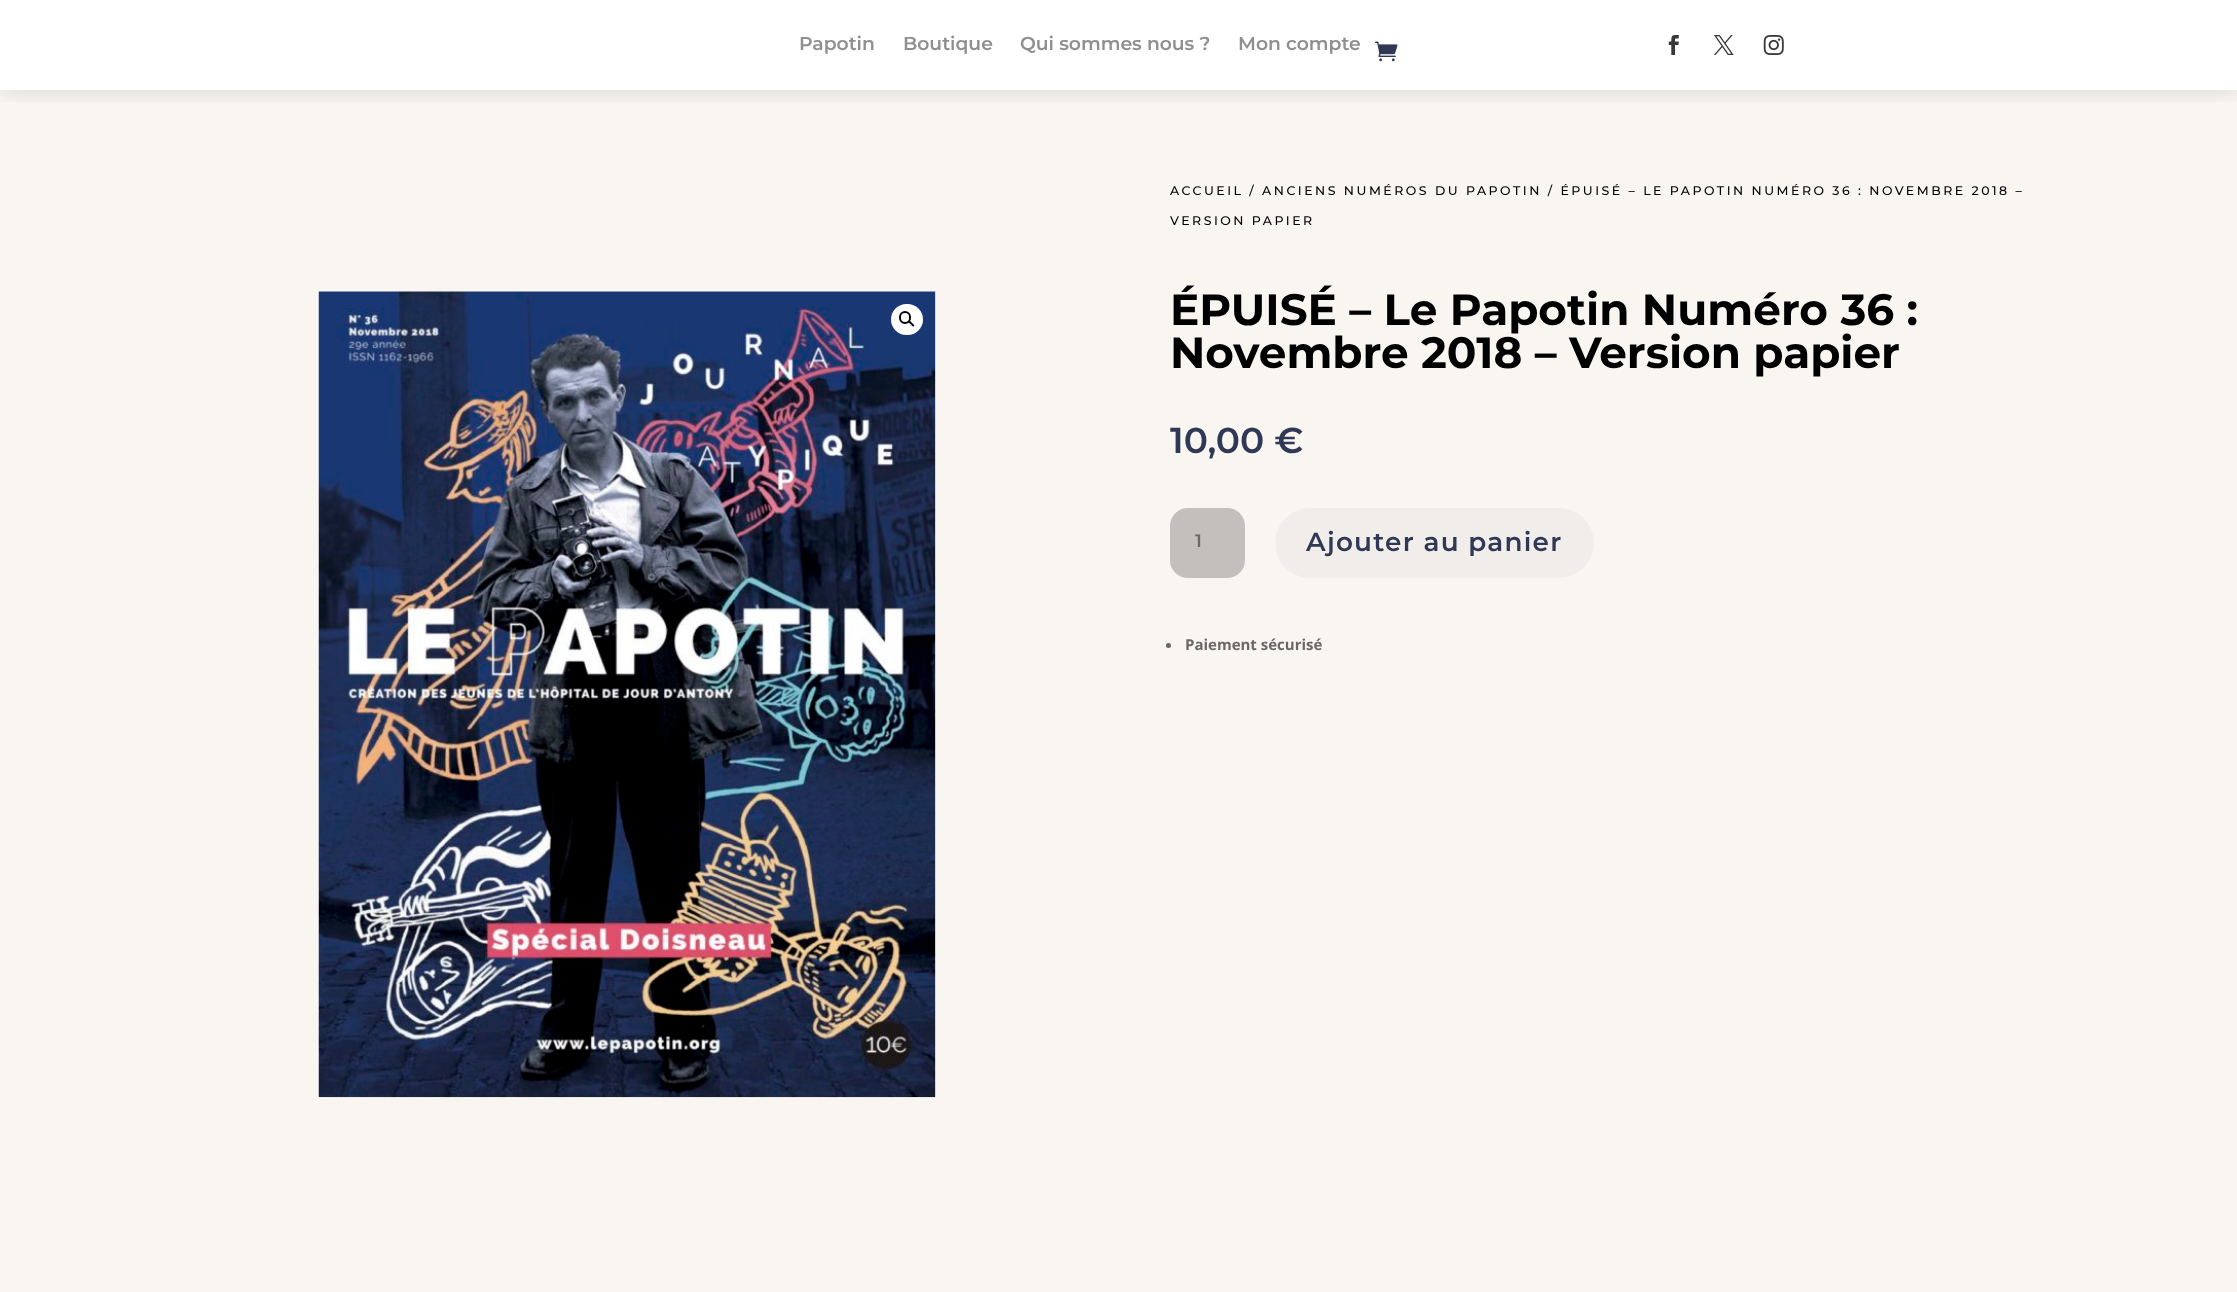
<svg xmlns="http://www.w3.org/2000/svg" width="2237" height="1292">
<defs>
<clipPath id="clip1"><rect x="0" y="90" width="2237" height="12"/></clipPath>
</defs>
<rect width="100%" height="100%" fill="#fff"/>
<rect y="90" width="2237" height="1202" fill="#f9f5f1"/>
<g clip-path="url(#clip1)">
<rect y="3" width="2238" height="90" fill="#0000001a" filter="blur(11px)"/>
</g>
<text x="799" y="50" style="font-family:'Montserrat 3';font-size:18.75px;font-weight:100;fill:#8f8f8f">Papotin</text>
<text x="903" y="50" style="font-family:'Montserrat 3';font-size:18.75px;font-weight:100;fill:#8f8f8f">Boutique</text>
<text x="1020" y="50" style="font-family:'Montserrat 3';font-size:18.75px;font-weight:100;fill:#8f8f8f">Qui sommes nous ?</text>
<text x="1238" y="50" style="font-family:'Montserrat 3';font-size:18.75px;font-weight:100;fill:#8f8f8f">Mon compte</text>
<image x="1375" y="41" width="23" height="21" href="media/1.png"/>
<image x="1668" y="35" width="11" height="20" href="media/2.png"/>
<image x="1714" y="35" width="20" height="20" href="media/3.png"/>
<image x="1763" y="35" width="21" height="20" href="media/4.png"/>
<image x="318" y="291" width="618" height="807" href="media/5.png"/>
<rect x="891" y="304" width="32" height="31" rx="15.5" fill="#fff"/>
<rect x="900" y="312" width="10" height="11" rx="5" fill="none" stroke="#000" stroke-width="2"/>
<path d="M909 321.5c1-1.5 2.5 1 3 1.5c.5 .5 3 2 2 3c-1 1.5-2.5-1-3-1.5c-.5-.5-3-2-2-3z" fill="#000"/>
<text x="1170" y="195" style="font-family:Montserrat;font-size:12.5px;font-weight:100;letter-spacing:2.5px;fill:#000">ACCUEIL / ANCIENS NUMÉROS DU PAPOTIN / ÉPUISÉ – LE PAPOTIN NUMÉRO 36 : NOVEMBRE 2018 –</text>
<text x="1170" y="225" style="font-family:Montserrat;font-size:12.5px;font-weight:100;letter-spacing:2.5px;fill:#000">VERSION PAPIER</text>
<text x="1170" y="325" style="font-family:'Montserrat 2';font-size:43.75px;font-weight:100;fill:#000">ÉPUISÉ – Le Papotin Numéro 36 :</text>
<text x="1170" y="368" style="font-family:'Montserrat 2';font-size:43.75px;font-weight:100;fill:#000">Novembre 2018 – Version papier</text>
<text x="1170" y="453" style="font-family:'Montserrat 3';font-size:36px;font-weight:100;fill:#2f3854">10,00 €</text>
<rect x="1170" y="508" width="75" height="70" rx="18" fill="#c2bfbc"/>
<text x="1195" y="547" style="font-family:'Montserrat 3';font-size:18px;font-weight:100;fill:#6b6967">1</text>
<rect x="1275" y="508" width="319" height="70" rx="35" fill="#f1edeb"/>
<text x="1306" y="551" style="font-family:'Montserrat 3';font-size:26.25px;font-weight:100;letter-spacing:1.25px;fill:#2f3854">Ajouter au panier</text>
<circle cx="1168.5" cy="645.5" r="2.5" fill="#666"/>
<text x="1185" y="650" style="font-family:Open Sans;font-size:15px;font-weight:bold;fill:#6b6967">Paiement sécurisé</text>
</svg>
